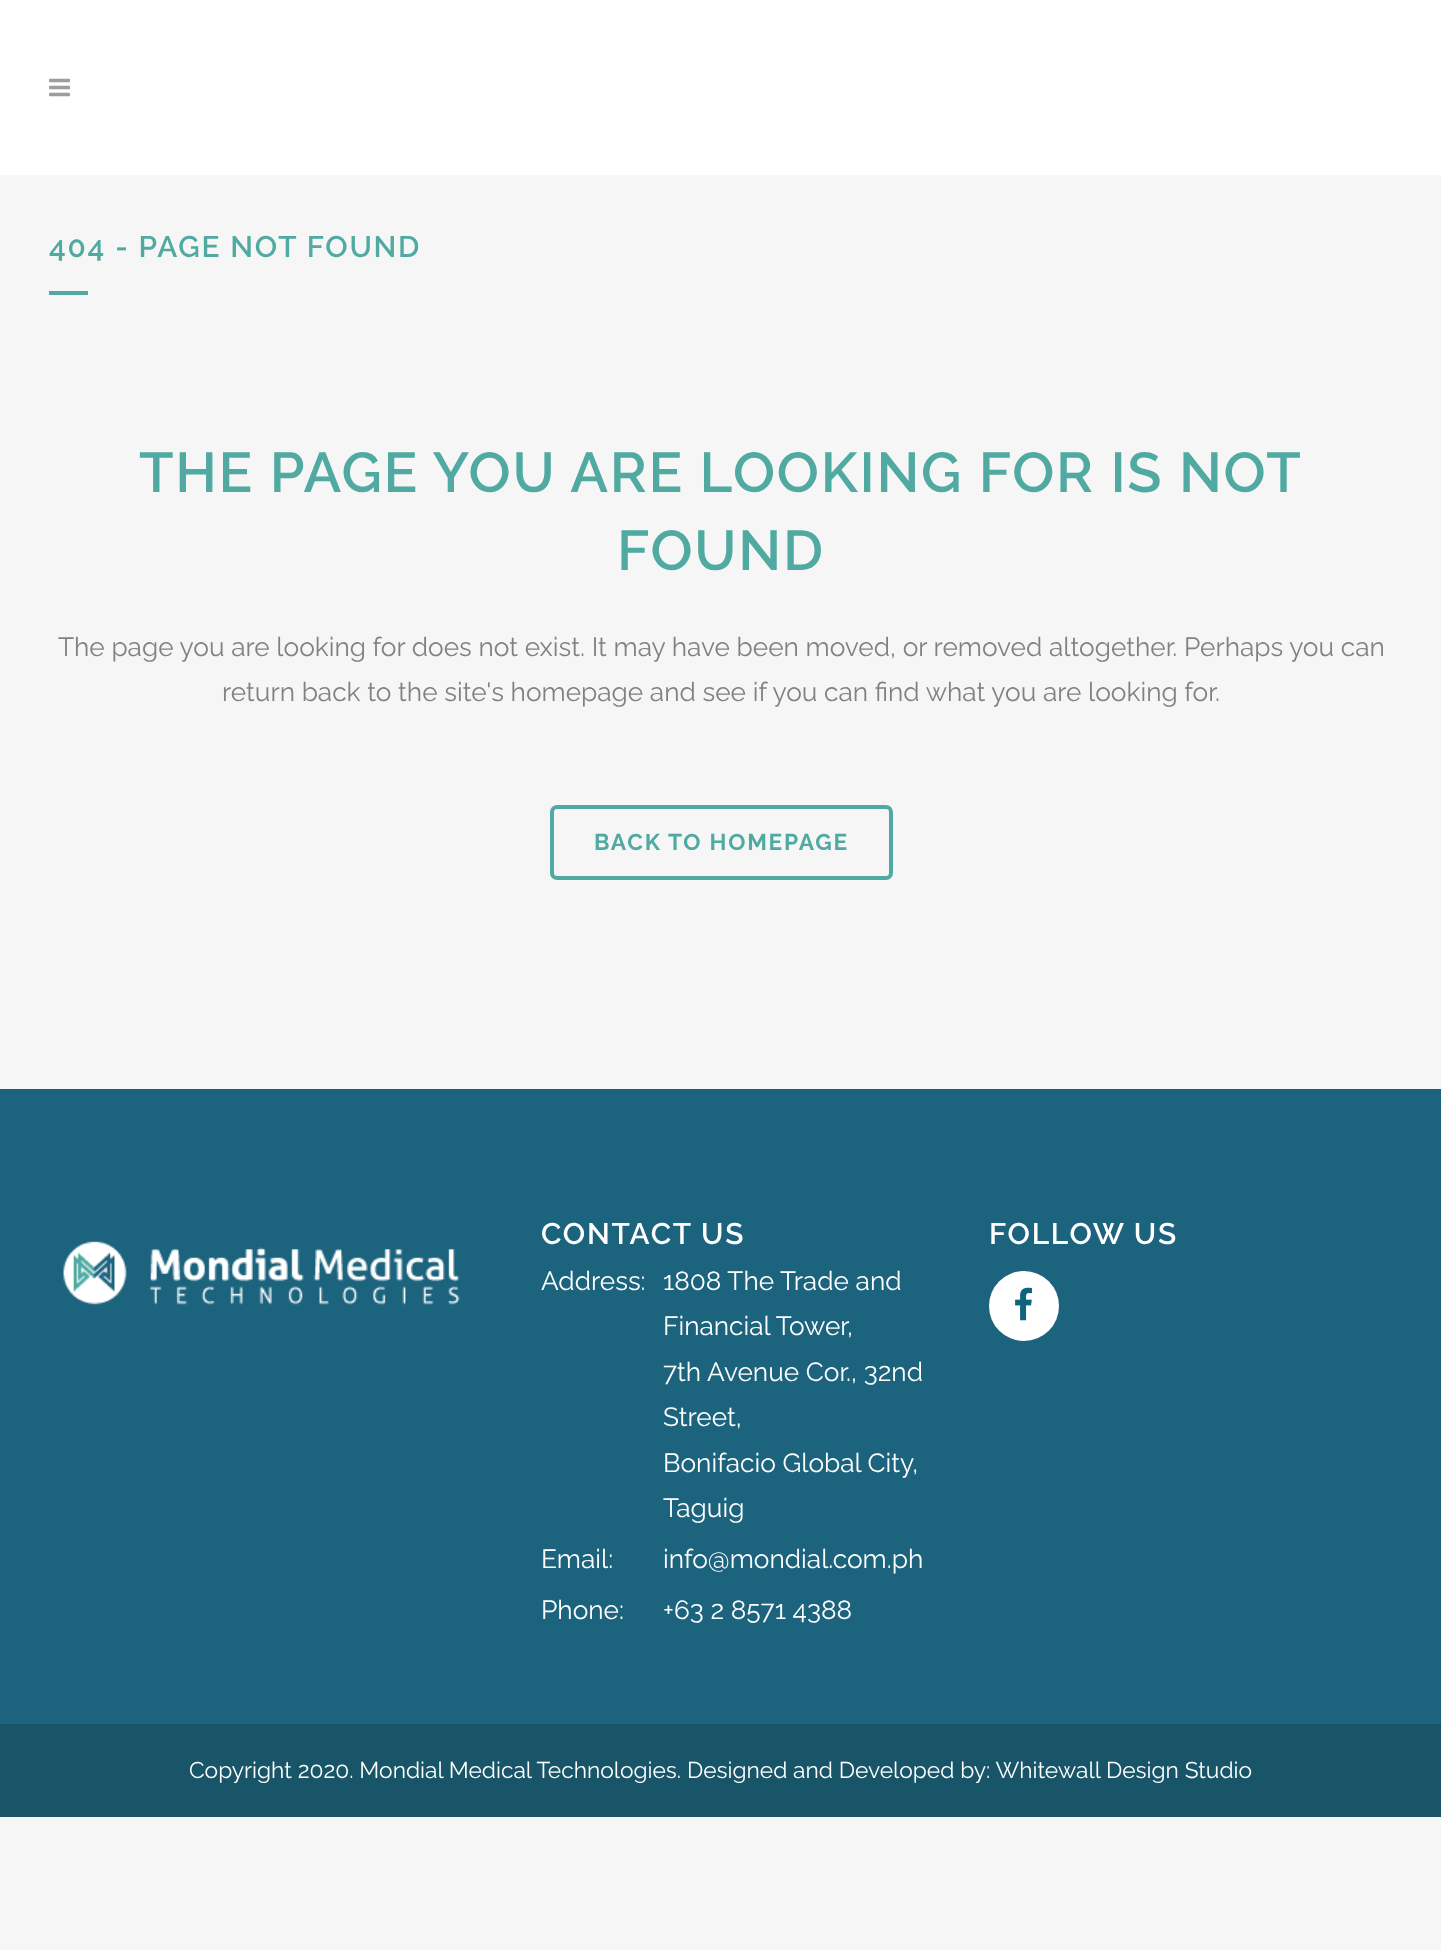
<svg xmlns="http://www.w3.org/2000/svg" width="1441" height="1950">
<rect width="100%" height="100%" fill="#f6f6f6"/>
<rect width="1441" height="175" fill="#fff"/>
<image x="49" y="78" width="21" height="19" href="media/1.png"/>
<text x="49" y="257" style="font-family:Raleway;font-size:29.75px;font-weight:600;letter-spacing:1.75px;fill:#50aaa1">404 - PAGE NOT FOUND</text>
<rect x="49" y="291" width="39" height="4" fill="#50aaa1"/>
<text x="139" y="492" style="font-family:Raleway;font-size:56px;font-weight:600;letter-spacing:1.75px;fill:#50aaa1">THE PAGE YOU ARE LOOKING FOR IS NOT</text>
<text x="617" y="570" style="font-family:Raleway;font-size:56px;font-weight:600;letter-spacing:1.75px;fill:#50aaa1">FOUND</text>
<text x="58" y="656" style="font-family:Raleway;font-size:26.25px;fill:#818181">The page you are looking for does not exist. It may have been moved, or removed altogether. Perhaps you can</text>
<text x="222" y="701" style="font-family:Raleway;font-size:26.25px;fill:#818181">return back to the site's homepage and see if you can find what you are looking for.</text>
<rect x="552" y="807" width="339" height="71" rx="5" fill="none" stroke="#50aaa1" stroke-width="4"/>
<text x="594" y="850" style="font-family:Raleway;font-size:22.75px;font-weight:bold;letter-spacing:1.75px;fill:#50aaa1">BACK TO HOMEPAGE</text>
<rect y="1089" width="1441" height="635" fill="#1c637e"/>
<text x="541" y="1244" style="font-family:Raleway;font-size:29.75px;font-weight:600;letter-spacing:1.75px;fill:#fff">CONTACT US</text>
<text x="541" y="1290" style="font-family:Raleway;font-size:26.25px;fill:#fff">Address:</text>
<text x="663" y="1290" style="font-family:Raleway;font-size:26.25px;fill:#fff">1808 The Trade and</text>
<text x="663" y="1335" style="font-family:Raleway;font-size:26.25px;fill:#fff">Financial Tower,</text>
<text x="663" y="1381" style="font-family:Raleway;font-size:26.25px;fill:#fff">7th Avenue Cor., 32nd</text>
<text x="663" y="1426" style="font-family:Raleway;font-size:26.25px;fill:#fff">Street,</text>
<text x="663" y="1472" style="font-family:Raleway;font-size:26.25px;fill:#fff">Bonifacio Global City,</text>
<text x="663" y="1517" style="font-family:Raleway;font-size:26.25px;fill:#fff">Taguig</text>
<text x="541" y="1568" style="font-family:Raleway;font-size:26.25px;fill:#fff">Email:</text>
<text x="663" y="1568" style="font-family:Raleway;font-size:26.25px;fill:#fff">info@mondial.com.ph</text>
<text x="541" y="1619" style="font-family:Raleway;font-size:26.25px;fill:#fff">Phone:</text>
<text x="663" y="1619" style="font-family:Raleway;font-size:26.25px;fill:#fff">+63 2 8571 4388</text>
<text x="989" y="1244" style="font-family:Raleway;font-size:29.75px;font-weight:600;letter-spacing:1.75px;fill:#fff">FOLLOW US</text>
<circle cx="1024" cy="1306" r="35" fill="#fff"/>
<image x="1015" y="1287" width="17" height="34" href="media/2.png"/>
<image x="63" y="1241" width="397" height="64" href="media/3.png"/>
<rect y="1724" width="1441" height="93" fill="#185568"/>
<text x="189" y="1778" style="font-family:Raleway;font-size:22.75px;fill:#fff">Copyright 2020. Mondial Medical Technologies. Designed and Developed by: Whitewall Design Studio</text>
</svg>
